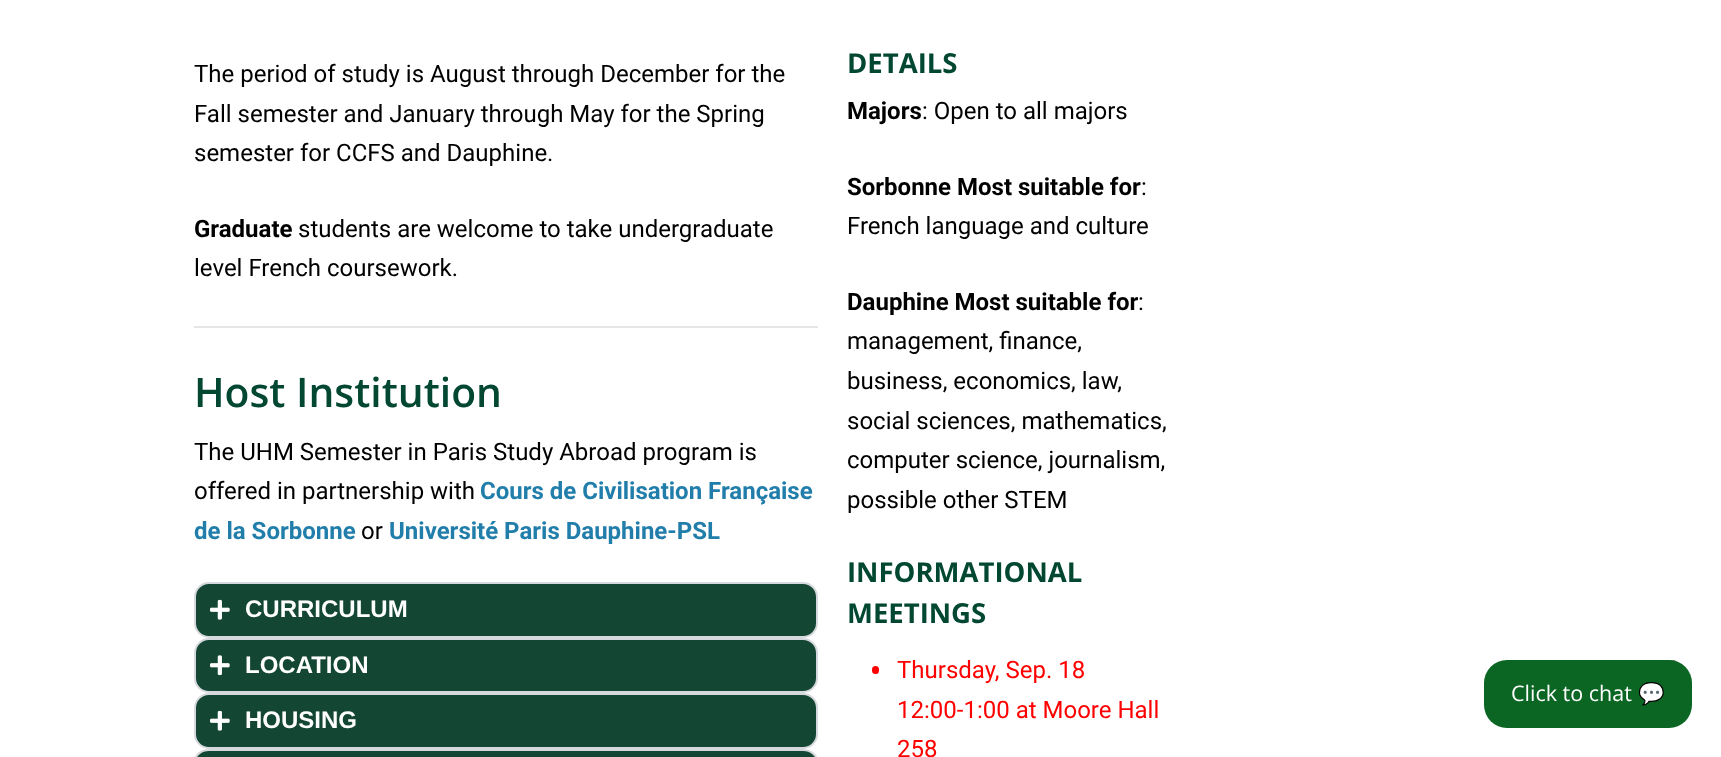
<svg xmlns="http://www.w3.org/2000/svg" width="1721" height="757">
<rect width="100%" height="100%" fill="#fff"/>
<text x="194" y="82" style="font-family:Roboto;font-size:24px;fill:#000">The period of study is August through December for the</text>
<text x="194" y="122" style="font-family:Roboto;font-size:24px;fill:#000">Fall semester and January through May for the Spring</text>
<text x="194" y="161" style="font-family:Roboto;font-size:24px;fill:#000">semester for CCFS and Dauphine.</text>
<text x="194" y="237" style="font-family:Roboto;font-size:24px;font-weight:bold;fill:#000">Graduate</text>
<text x="298" y="237" style="font-family:Roboto;font-size:24px;fill:#000">students are welcome to take undergraduate</text>
<text x="194" y="276" style="font-family:Roboto;font-size:24px;fill:#000">level French coursework.</text>
<rect x="194" y="326" width="624" height="2" fill="#e6e6e6"/>
<text x="194" y="407" style="font-family:Open Sans;font-size:40.75px;font-weight:600;fill:#024731">Host Institution</text>
<text x="194" y="460" style="font-family:Roboto;font-size:24px;fill:#000">The UHM Semester in Paris Study Abroad program is</text>
<text x="194" y="499" style="font-family:Roboto;font-size:24px;fill:#000">offered in partnership with</text>
<text x="480" y="499" style="font-family:Roboto;font-size:24px;font-weight:bold;fill:#217eab">Cours de Civilisation Française</text>
<text x="194" y="539" style="font-family:Roboto;font-size:24px;font-weight:bold;fill:#217eab">de la Sorbonne</text>
<text x="361" y="539" style="font-family:Roboto;font-size:24px;fill:#000">or</text>
<text x="389" y="539" style="font-family:Roboto;font-size:24px;font-weight:bold;fill:#217eab">Université Paris Dauphine-PSL</text>
<rect x="195" y="583" width="622" height="54" rx="14" fill="#134633" stroke="#d5d8dc" stroke-width="2"/>
<image x="210" y="599" width="20" height="21" href="media/1.png"/>
<text x="245" y="617" style="font-family:Liberation Sans;font-size:24px;font-weight:bold;fill:#fff">CURRICULUM</text>
<rect x="195" y="639" width="622" height="53" rx="14" fill="#134633" stroke="#d5d8dc" stroke-width="2"/>
<image x="210" y="655" width="20" height="21" href="media/2.png"/>
<text x="245" y="673" style="font-family:Liberation Sans;font-size:24px;font-weight:bold;fill:#fff">LOCATION</text>
<rect x="195" y="694" width="622" height="54" rx="14" fill="#134633" stroke="#d5d8dc" stroke-width="2"/>
<image x="210" y="710" width="20" height="21" href="media/1.png"/>
<text x="245" y="728" style="font-family:Liberation Sans;font-size:24px;font-weight:bold;fill:#fff">HOUSING</text>
<rect x="195" y="750" width="622" height="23" rx="14" fill="#134633" stroke="#d5d8dc" stroke-width="2"/>
<text x="847" y="73" style="font-family:Open Sans;font-size:27.5px;font-weight:bold;fill:#024731">DETAILS</text>
<text x="847" y="119" style="font-family:Roboto;font-size:24px;font-weight:bold;fill:#000">Majors</text>
<text x="922" y="119" style="font-family:Roboto;font-size:24px;fill:#000">: Open to all majors</text>
<text x="847" y="195" style="font-family:Roboto;font-size:24px;font-weight:bold;fill:#000">Sorbonne Most suitable for</text>
<text x="1141" y="195" style="font-family:Roboto;font-size:24px;fill:#000">:</text>
<text x="847" y="234" style="font-family:Roboto;font-size:24px;fill:#000">French language and culture</text>
<text x="847" y="310" style="font-family:Roboto;font-size:24px;font-weight:bold;fill:#000">Dauphine Most suitable for</text>
<text x="1138" y="310" style="font-family:Roboto;font-size:24px;fill:#000">:</text>
<text x="847" y="349" style="font-family:Roboto;font-size:24px;fill:#000">management, finance,</text>
<text x="847" y="389" style="font-family:Roboto;font-size:24px;fill:#000">business, economics, law,</text>
<text x="847" y="429" style="font-family:Roboto;font-size:24px;fill:#000">social sciences, mathematics,</text>
<text x="847" y="468" style="font-family:Roboto;font-size:24px;fill:#000">computer science, journalism,</text>
<text x="847" y="508" style="font-family:Roboto;font-size:24px;fill:#000">possible other STEM</text>
<text x="847" y="582" style="font-family:Open Sans;font-size:27.5px;font-weight:bold;fill:#024731">INFORMATIONAL</text>
<text x="847" y="623" style="font-family:Open Sans;font-size:27.5px;font-weight:bold;fill:#024731">MEETINGS</text>
<rect x="872" y="666" width="7" height="8" rx="3.5" fill="#f00"/>
<text x="897" y="678" style="font-family:Roboto;font-size:24px;fill:#f00">Thursday, Sep. 18</text>
<text x="897" y="718" style="font-family:Roboto;font-size:24px;fill:#f00">12:00-1:00 at Moore Hall</text>
<text x="897" y="757" style="font-family:Roboto;font-size:24px;fill:#f00">258</text>
<image x="1669" y="660" width="8" height="2" href="media/3.png"/>
<rect x="1484" y="660" width="208" height="68" rx="23" fill="#0b6623"/>
<text x="1511" y="701" style="font-family:Open Sans;font-size:21.5px;fill:#fff">Click to chat</text>
<text x="1638" y="701" style="font-family:Noto Color Emoji;font-size:21.5px;fill:#fff">💬</text>
</svg>
